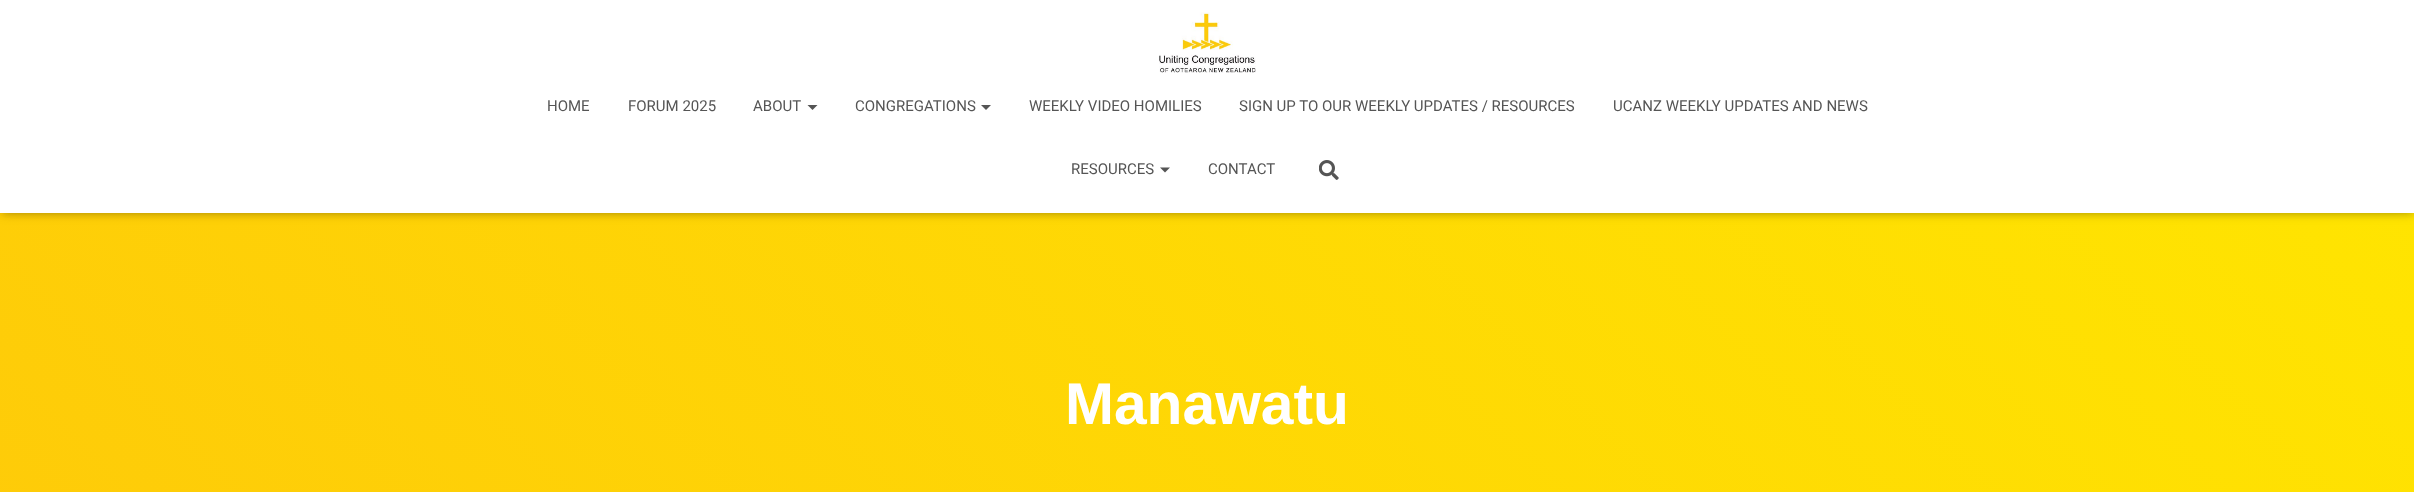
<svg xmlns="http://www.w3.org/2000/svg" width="2414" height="492">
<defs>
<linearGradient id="g1" gradientUnits="userSpaceOnUse" x1="436" y1="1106" x2="1979" y2="-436"><stop offset="0" stop-color="#feca09"/><stop offset="1" stop-color="#ffe600"/></linearGradient>
</defs>
<rect width="100%" height="100%" fill="#fff"/>
<rect y="213" width="2414" height="279" fill="url(#g1)"/>
<rect x="3" y="8" width="2410" height="207" fill="#0000001a" filter="blur(3px)"/>
<rect y="1" width="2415" height="213" fill="#0000001f" filter="blur(6px)"/>
<rect x="8" y="9" width="2400" height="197" fill="#0000006b" filter="blur(6px)"/>
<rect width="2414" height="213" fill="#fff"/>
<image x="1159" y="12" width="97" height="61" href="media/1.png"/>
<text x="547" y="111" style="font-family:Roboto;font-size:15px;fill:#555">HOME</text>
<text x="628" y="111" style="font-family:Roboto;font-size:15px;fill:#555">FORUM 2025</text>
<text x="753" y="111" style="font-family:Roboto;font-size:15px;fill:#555">ABOUT</text>
<path d="M807.5 105h10l-5 5z" fill="#555"/>
<text x="855" y="111" style="font-family:Roboto;font-size:15px;fill:#555">CONGREGATIONS</text>
<path d="M981 105h10l-5 5z" fill="#555"/>
<text x="1029" y="111" style="font-family:Roboto;font-size:15px;fill:#555">WEEKLY VIDEO HOMILIES</text>
<text x="1239" y="111" style="font-family:Roboto;font-size:15px;fill:#555">SIGN UP TO OUR WEEKLY UPDATES / RESOURCES</text>
<text x="1613" y="111" style="font-family:Roboto;font-size:15px;fill:#555">UCANZ WEEKLY UPDATES AND NEWS</text>
<text x="1071" y="174" style="font-family:Roboto;font-size:15px;fill:#555">RESOURCES</text>
<path d="M1160 167.5h10l-5 5z" fill="#555"/>
<text x="1208" y="174" style="font-family:Roboto;font-size:15px;fill:#555">CONTACT</text>
<image x="1319" y="160" width="20" height="20" href="media/2.png"/>
<text x="1065" y="424" style="font-family:Liberation Sans;font-size:58.75px;font-weight:bold;fill:#fff">Manawatu</text>
</svg>
